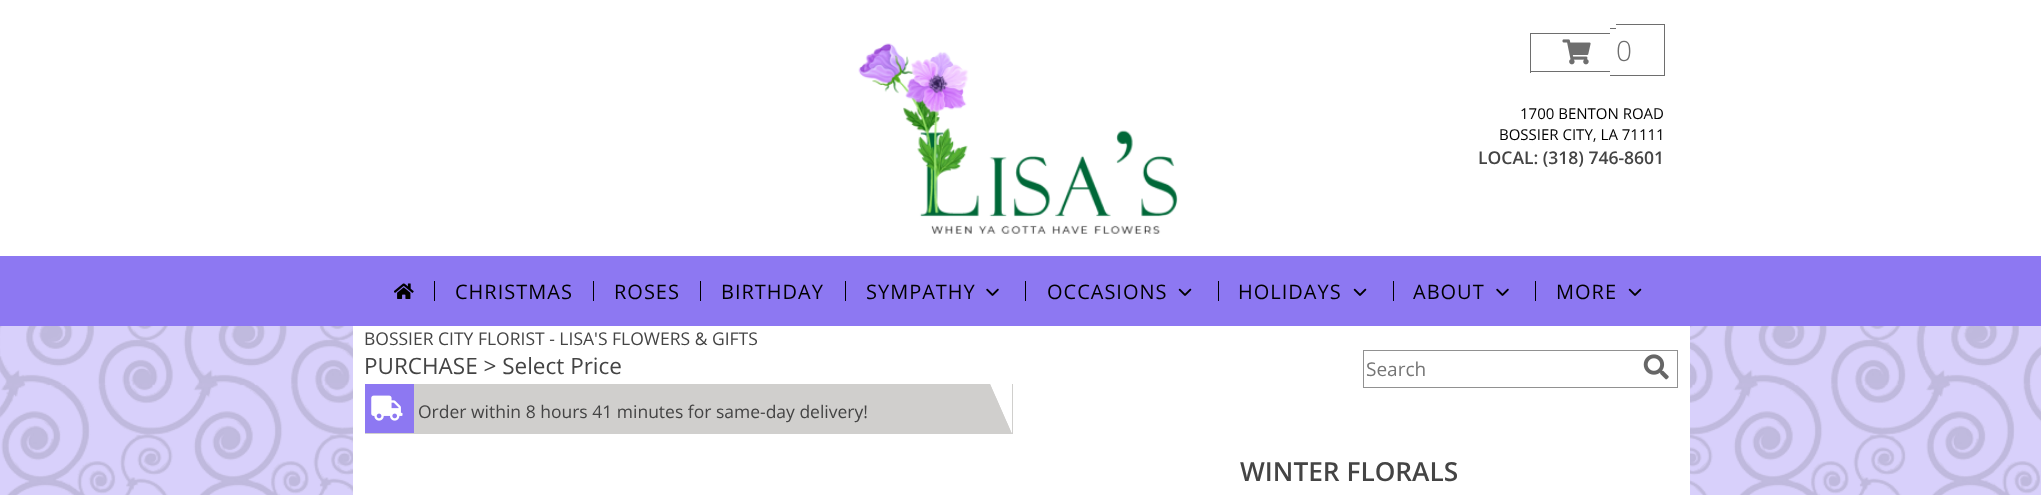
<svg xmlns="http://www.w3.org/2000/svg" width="2041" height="495">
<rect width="100%" height="100%" fill="#d8d0fb"/>
<image x="0" y="326" width="2041" height="169" href="media/1.png"/>
<rect x="353" y="326" width="1337" height="169" fill="#fff"/>
<rect width="2041" height="256" fill="#fff"/>
<image x="858" y="43" width="320" height="191" href="media/2.png"/>
<rect x="1530" y="33" width="80" height="1" fill="#6e6e6e"/>
<rect x="1530" y="71" width="80" height="1" fill="#6e6e6e"/>
<rect x="1530" y="33" width="1" height="40" fill="#6e6e6e"/>
<rect x="1610" y="28" width="6" height="1" fill="#6e6e6e"/>
<rect x="1610" y="75" width="6" height="1" fill="#6e6e6e"/>
<rect x="1616" y="24" width="49" height="1" fill="#6e6e6e"/>
<rect x="1664" y="24" width="1" height="52" fill="#6e6e6e"/>
<rect x="1616" y="75" width="49" height="1" fill="#6e6e6e"/>
<image x="1562" y="39" width="29" height="26" href="media/3.png"/>
<text x="1616" y="61" style="font-family:Open Sans;font-size:28px;font-weight:300;fill:#6e6e6e">0</text>
<text x="1520" y="119" style="font-family:Open Sans;font-size:15px;fill:#000">1700 BENTON ROAD</text>
<text x="1499" y="140" style="font-family:Open Sans;font-size:15px;fill:#000">BOSSIER CITY, LA 71111</text>
<text x="1478" y="164" style="font-family:Open Sans;font-size:17.5px;font-weight:600;fill:#444">LOCAL: (318) 746-8601</text>
<rect y="256" width="2041" height="70" fill="#8d78f2"/>
<image x="394" y="283" width="20" height="16" href="media/4.png"/>
<rect x="434" y="281" width="1" height="20" fill="#000"/>
<text x="455" y="299" style="font-family:Open Sans;font-size:20px;letter-spacing:1px;fill:#000">CHRISTMAS</text>
<rect x="593" y="281" width="1" height="20" fill="#000"/>
<text x="614" y="299" style="font-family:Open Sans;font-size:20px;letter-spacing:1px;fill:#000">ROSES</text>
<rect x="700" y="281" width="1" height="20" fill="#000"/>
<text x="721" y="299" style="font-family:Open Sans;font-size:20px;letter-spacing:1px;fill:#000">BIRTHDAY</text>
<rect x="845" y="281" width="1" height="20" fill="#000"/>
<text x="866" y="299" style="font-family:Open Sans;font-size:20px;letter-spacing:1px;fill:#000">SYMPATHY</text>
<image x="986" y="288" width="13" height="8" href="media/5.png"/>
<rect x="1025" y="281" width="1" height="20" fill="#000"/>
<text x="1047" y="299" style="font-family:Open Sans;font-size:20px;letter-spacing:1px;fill:#000">OCCASIONS</text>
<image x="1178" y="288" width="14" height="8" href="media/6.png"/>
<rect x="1218" y="281" width="1" height="20" fill="#000"/>
<text x="1238" y="299" style="font-family:Open Sans;font-size:20px;letter-spacing:1px;fill:#000">HOLIDAYS</text>
<image x="1353" y="288" width="14" height="8" href="media/6.png"/>
<rect x="1393" y="281" width="1" height="20" fill="#000"/>
<text x="1413" y="299" style="font-family:Open Sans;font-size:20px;letter-spacing:1px;fill:#000">ABOUT</text>
<image x="1496" y="288" width="13" height="8" href="media/5.png"/>
<rect x="1535" y="281" width="1" height="20" fill="#000"/>
<text x="1556" y="299" style="font-family:Open Sans;font-size:20px;letter-spacing:1px;fill:#000">MORE</text>
<image x="1628" y="288" width="14" height="8" href="media/6.png"/>
<text x="364" y="345" style="font-family:Open Sans;font-size:17.5px;fill:#444">BOSSIER CITY FLORIST - LISA'S FLOWERS &amp; GIFTS</text>
<text x="364" y="374" style="font-family:Open Sans;font-size:22.5px;fill:#444">PURCHASE &gt; Select Price</text>
<rect x="1363.5" y="350.5" width="314" height="37" fill="none" stroke="#919191"/>
<text x="1366" y="376" style="font-family:Open Sans;font-size:19px;fill:#757575">Search</text>
<image x="1643" y="354" width="26" height="26" href="media/7.png"/>
<rect x="990" y="384" width="23" height="50" fill="#d0cfcd"/>
<path d="M1012 384v50l-22-50z" fill="#fff"/>
<path d="M1012 434h-647v-50h625z" fill="#d0cfcd"/>
<rect x="365" y="384" width="49" height="49" fill="#8d78f2"/>
<image x="371" y="395" width="32" height="26" href="media/8.png"/>
<text x="418" y="418" style="font-family:Open Sans;font-size:17.5px;fill:#444">Order within 8 hours 41 minutes for same-day delivery!</text>
<text x="1240" y="481" style="font-family:Open Sans;font-size:26.25px;font-weight:600;fill:#444">WINTER FLORALS</text>
</svg>
